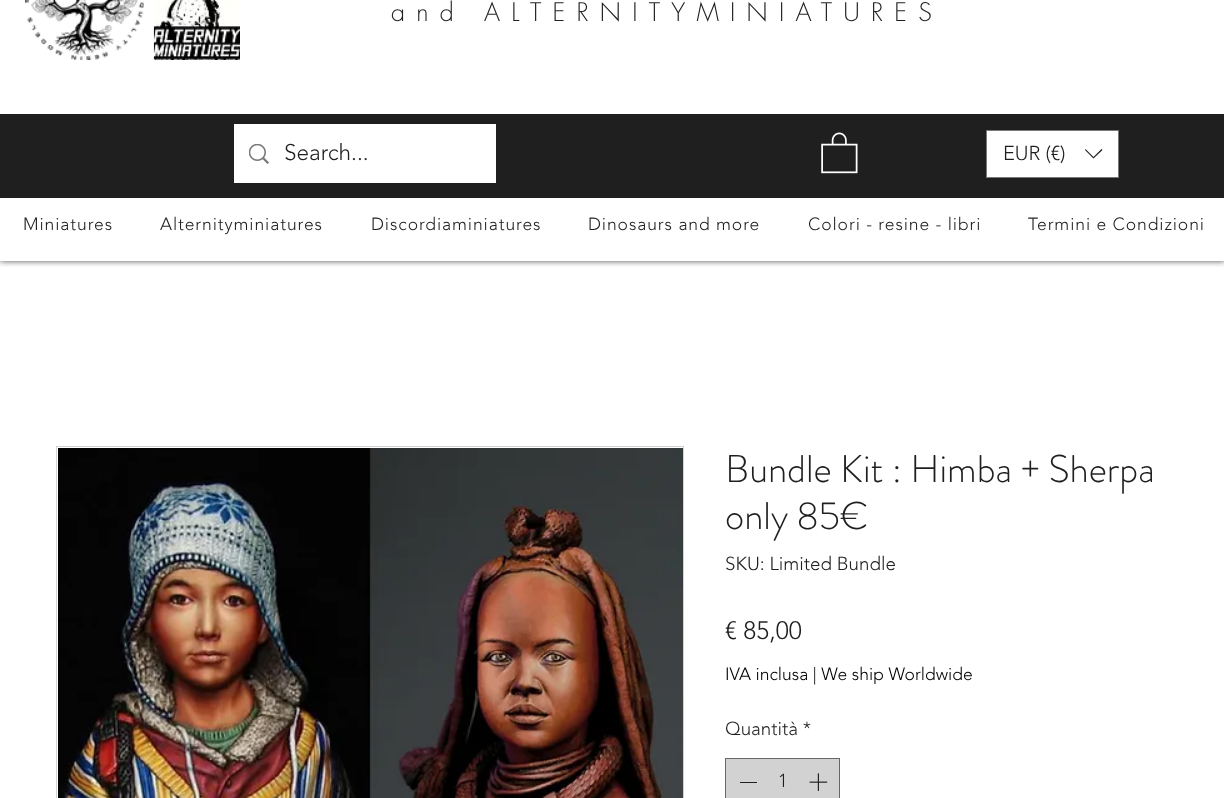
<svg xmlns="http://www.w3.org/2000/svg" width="1224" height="798">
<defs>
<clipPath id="clip1"><rect x="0" y="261" width="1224" height="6"/></clipPath>
</defs>
<rect width="100%" height="100%" fill="#fff"/>
<g clip-path="url(#clip1)">
<rect y="-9" width="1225" height="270" fill="#000000b3" filter="blur(3px)"/>
</g>
<image x="25" y="0" width="119" height="60" href="media/1.png"/>
<image x="153" y="0" width="87" height="60" href="media/2.png"/>
<text x="391" y="21" style="font-family:futura;font-size:25px;font-weight:300;letter-spacing:11.25px;fill:#1f1f1f">and ALTERNITYMINIATURES</text>
<rect y="114" width="1224" height="84" fill="#1f1f1f"/>
<rect x="234" y="124" width="262" height="59" fill="#fff"/>
<image x="249" y="144" width="20" height="20" href="media/3.png"/>
<text x="284" y="160" style="font-family:'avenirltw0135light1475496';font-size:22.5px;font-weight:300;fill:#1f1f1f">Search...</text>
<image x="821" y="132" width="37" height="42" href="media/4.png"/>
<rect x="986.5" y="130.5" width="132" height="47" fill="#fff" stroke="#797979"/>
<text x="1003" y="160" style="font-family:'avenirltw0135light1475496';font-size:20px;font-weight:300;fill:#1f1f1f">EUR (€)</text>
<path d="M1101.5 149l1 1l-9 8.5l-8.5-8.5l.5-1l8 8z" fill="#1f1f1f" fill-rule="evenodd"/>
<text x="23" y="230" style="font-family:'avenirltw0135light1475496';font-size:17.5px;font-weight:300;letter-spacing:0.9px;fill:#1f1f1f">Miniatures</text>
<text x="160" y="230" style="font-family:'avenirltw0135light1475496';font-size:17.5px;font-weight:300;letter-spacing:0.9px;fill:#1f1f1f">Alternityminiatures</text>
<text x="371" y="230" style="font-family:'avenirltw0135light1475496';font-size:17.5px;font-weight:300;letter-spacing:0.9px;fill:#1f1f1f">Discordiaminiatures</text>
<text x="588" y="230" style="font-family:'avenirltw0135light1475496';font-size:17.5px;font-weight:300;letter-spacing:0.9px;fill:#1f1f1f">Dinosaurs and more</text>
<text x="808" y="230" style="font-family:'avenirltw0135light1475496';font-size:17.5px;font-weight:300;letter-spacing:0.9px;fill:#1f1f1f">Colori - resine - libri</text>
<text x="1028" y="230" style="font-family:'avenirltw0135light1475496';font-size:17.5px;font-weight:300;letter-spacing:0.9px;fill:#1f1f1f">Termini e Condizioni</text>
<rect x="56.5" y="446.5" width="627" height="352" fill="none" stroke="#d2d2d2"/>
<image x="58" y="448" width="625" height="350" href="media/5.png"/>
<text x="725" y="482" style="font-family:'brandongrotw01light';font-size:38.75px;font-weight:300;fill:#1f1f1f">Bundle Kit : Himba + Sherpa</text>
<text x="725" y="529" style="font-family:'brandongrotw01light';font-size:38.75px;font-weight:300;fill:#1f1f1f">only 85€</text>
<text x="725" y="570" style="font-family:'avenirltw0135light1475496';font-size:18.75px;font-weight:300;fill:#1f1f1f">SKU: Limited Bundle</text>
<text x="725" y="639" style="font-family:'avenirltw0135light1475496';font-size:25px;font-weight:300;fill:#1f1f1f">€ 85,00</text>
<text x="725" y="680" style="font-family:'avenirltw0135light1475496';font-size:17.5px;font-weight:300;fill:#000">IVA inclusa | We ship Worldwide</text>
<text x="725" y="735" style="font-family:'avenirltw0135light1475496';font-size:18.75px;font-weight:300;fill:#1f1f1f">Quantità *</text>
<rect x="725.5" y="758.5" width="114" height="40" fill="#d2d2d2" stroke="#676767"/>
<rect x="740" y="782" width="17" height="1" fill="#1f1f1f"/>
<text x="778" y="787" style="font-family:'avenirltw0135light1475496';font-size:18.75px;font-weight:300;fill:#1f1f1f">1</text>
<image x="809" y="773" width="19" height="18" href="media/6.png"/>
</svg>
